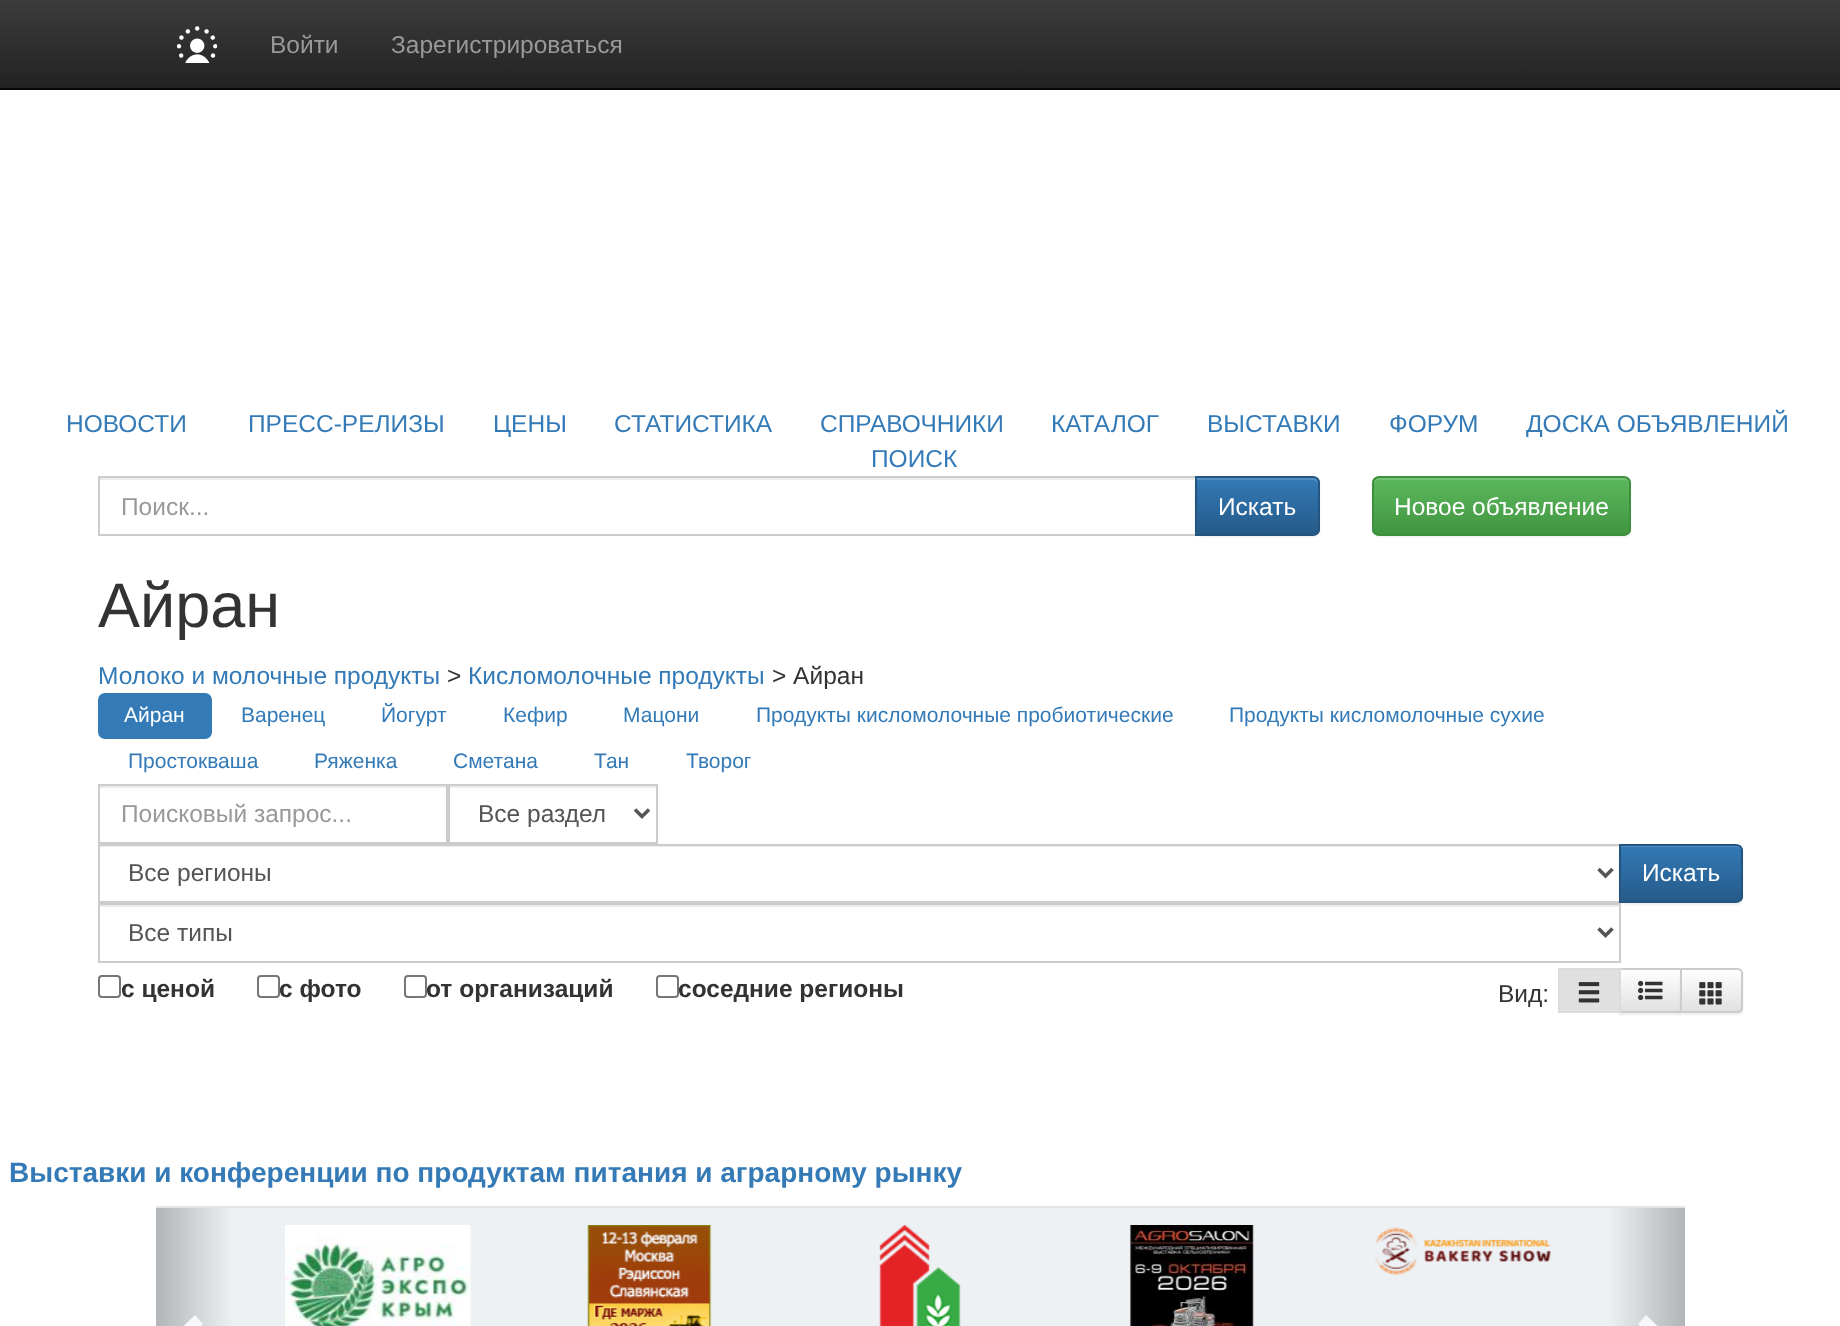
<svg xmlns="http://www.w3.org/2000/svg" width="1840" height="1326">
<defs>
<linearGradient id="g1" gradientUnits="userSpaceOnUse" x1="921" y1="0" x2="921" y2="88"><stop offset="0" stop-color="#3c3c3c"/><stop offset="1" stop-color="#222"/></linearGradient>
<clipPath id="clip1"><path d="M1195 476h118c4 0 7 3 7 7v46c0 4-3 7-7 7h-118z"/></clipPath>
<linearGradient id="g2" gradientUnits="userSpaceOnUse" x1="1257" y1="478" x2="1257" y2="534"><stop offset="0" stop-color="#337ab7"/><stop offset="1" stop-color="#265a88"/></linearGradient>
<clipPath id="clip2"><rect x="1372" y="476" width="259" height="60" rx="7"/></clipPath>
<linearGradient id="g3" gradientUnits="userSpaceOnUse" x1="1502" y1="478" x2="1502" y2="534"><stop offset="0" stop-color="#5cb85c"/><stop offset="1" stop-color="#419641"/></linearGradient>
<clipPath id="clip3"><path d="M1619 844h117c4 0 7 3 7 7v45c0 4-3 7-7 7h-117z"/></clipPath>
<linearGradient id="g4" gradientUnits="userSpaceOnUse" x1="1681" y1="845" x2="1681" y2="901"><stop offset="0" stop-color="#337ab7"/><stop offset="1" stop-color="#265a88"/></linearGradient>
<linearGradient id="g5" gradientUnits="userSpaceOnUse" x1="1650" y1="970" x2="1650" y2="1012"><stop offset="0" stop-color="#fff"/><stop offset="1" stop-color="#e0e0e0"/></linearGradient>
<clipPath id="clip4"><path d="M1680 968h58c3 0 5 2 5 5v35c0 3-2 5-5 5h-58z"/></clipPath>
<linearGradient id="g6" gradientUnits="userSpaceOnUse" x1="1712" y1="970" x2="1712" y2="1012"><stop offset="0" stop-color="#fff"/><stop offset="1" stop-color="#e0e0e0"/></linearGradient>
<linearGradient id="g7" gradientUnits="userSpaceOnUse" x1="156" y1="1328" x2="233" y2="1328"><stop offset="0" stop-color="#b2b5b7"/><stop offset="1" stop-color="#edf1f3"/></linearGradient>
<linearGradient id="g8" gradientUnits="userSpaceOnUse" x1="1608" y1="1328" x2="1685" y2="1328"><stop offset="0" stop-color="#edf1f3"/><stop offset="1" stop-color="#b2b5b7"/></linearGradient>
</defs>
<rect width="100%" height="100%" fill="#fff"/>
<rect width="1840" height="88" fill="url(#g1)"/>
<rect y="88" width="1840" height="2" fill="#080808"/>
<image x="177" y="26" width="40" height="37" href="media/1.png"/>
<text x="270" y="53" style="font-family:Liberation Sans;font-size:24.5px;fill:#999">Войти</text>
<text x="391" y="53" style="font-family:Liberation Sans;font-size:24.5px;fill:#999">Зарегистрироваться</text>
<text x="66" y="432" style="font-family:Liberation Sans;font-size:24.5px;fill:#337ab7">НОВОСТИ</text>
<text x="248" y="432" style="font-family:Liberation Sans;font-size:24.5px;fill:#337ab7">ПРЕСС-РЕЛИЗЫ</text>
<text x="493" y="432" style="font-family:Liberation Sans;font-size:24.5px;fill:#337ab7">ЦЕНЫ</text>
<text x="614" y="432" style="font-family:Liberation Sans;font-size:24.5px;fill:#337ab7">СТАТИСТИКА</text>
<text x="820" y="432" style="font-family:Liberation Sans;font-size:24.5px;fill:#337ab7">СПРАВОЧНИКИ</text>
<text x="1051" y="432" style="font-family:Liberation Sans;font-size:24.5px;fill:#337ab7">КАТАЛОГ</text>
<text x="1207" y="432" style="font-family:Liberation Sans;font-size:24.5px;fill:#337ab7">ВЫСТАВКИ</text>
<text x="1389" y="432" style="font-family:Liberation Sans;font-size:24.5px;fill:#337ab7">ФОРУМ</text>
<text x="1526" y="432" style="font-family:Liberation Sans;font-size:24.5px;fill:#337ab7">ДОСКА ОБЪЯВЛЕНИЙ</text>
<text x="871" y="467" style="font-family:Liberation Sans;font-size:24.5px;fill:#337ab7">ПОИСК</text>
<rect x="100" y="478" width="1095" height="2" fill="#ececec"/>
<rect x="99" y="477" width="1097" height="58" fill="none" stroke="#ccc" stroke-width="2"/>
<text x="121" y="515" style="font-family:Liberation Sans;font-size:24.5px;fill:#999">Поиск...</text>
<rect x="1195" y="478" width="125" height="59" rx="7" fill="#00000012" filter="blur(1px)"/>
<g clip-path="url(#clip1)">
<rect x="1197" y="478" width="123" height="56" fill="url(#g2)"/>
</g>
<path d="M1197 480h115c3 0 6 2 6 5v-2c0-3-2-5-5-5h-116z" fill="#ffffff26"/>
<path d="M1196 477h117c3.5 0 6 2.5 6 6v46c0 3.5-2.5 6-6 6h-117z" fill="none" stroke="#245580" stroke-width="2"/>
<text x="1218" y="515" style="font-family:Liberation Sans;font-size:24.5px;fill:#fff">Искать</text>
<rect x="1372" y="478" width="259" height="59" rx="7" fill="#00000012" filter="blur(1px)"/>
<g clip-path="url(#clip2)">
<rect x="1372" y="478" width="259" height="56" fill="url(#g3)"/>
</g>
<path d="M1379 480h245c3 0 5 2 5 5c0-3-1-7-5-7h-245c-4 0-5 4-5 7c0-3 2-5 5-5z" fill="#74c274"/>
<rect x="1373" y="477" width="257" height="58" rx="6" fill="none" stroke="#3e8f3e" stroke-width="2"/>
<text x="1394" y="515" style="font-family:Liberation Sans;font-size:24.5px;fill:#fff">Новое объявление</text>
<text x="98" y="627" style="font-family:Liberation Sans;font-size:63px;fill:#333">Айран</text>
<text x="98" y="684" style="font-family:Liberation Sans;font-size:24.5px;fill:#337ab7">Молоко и молочные продукты</text>
<text x="447" y="684" style="font-family:Liberation Sans;font-size:24.5px;fill:#333">&gt;</text>
<text x="468" y="684" style="font-family:Liberation Sans;font-size:24.5px;fill:#337ab7">Кисломолочные продукты</text>
<text x="772" y="684" style="font-family:Liberation Sans;font-size:24.5px;fill:#333">&gt; Айран</text>
<rect x="98" y="693" width="114" height="46" rx="7" fill="#337ab7"/>
<text x="124" y="722" style="font-family:Liberation Sans;font-size:21px;fill:#fff">Айран</text>
<text x="241" y="722" style="font-family:Liberation Sans;font-size:21px;fill:#337ab7">Варенец</text>
<text x="381" y="722" style="font-family:Liberation Sans;font-size:21px;fill:#337ab7">Йогурт</text>
<text x="503" y="722" style="font-family:Liberation Sans;font-size:21px;fill:#337ab7">Кефир</text>
<text x="623" y="722" style="font-family:Liberation Sans;font-size:21px;fill:#337ab7">Мацони</text>
<text x="756" y="722" style="font-family:Liberation Sans;font-size:21px;fill:#337ab7">Продукты кисломолочные пробиотические</text>
<text x="1229" y="722" style="font-family:Liberation Sans;font-size:21px;fill:#337ab7">Продукты кисломолочные сухие</text>
<text x="128" y="768" style="font-family:Liberation Sans;font-size:21px;fill:#337ab7">Простокваша</text>
<text x="314" y="768" style="font-family:Liberation Sans;font-size:21px;fill:#337ab7">Ряженка</text>
<text x="453" y="768" style="font-family:Liberation Sans;font-size:21px;fill:#337ab7">Сметана</text>
<text x="594" y="768" style="font-family:Liberation Sans;font-size:21px;fill:#337ab7">Тан</text>
<text x="686" y="768" style="font-family:Liberation Sans;font-size:21px;fill:#337ab7">Творог</text>
<rect x="100" y="786" width="346" height="2" fill="#ececec"/>
<rect x="99" y="785" width="348" height="58" fill="none" stroke="#ccc" stroke-width="2"/>
<text x="121" y="822" style="font-family:Liberation Sans;font-size:24.5px;fill:#999">Поисковый запрос...</text>
<rect x="450" y="786" width="206" height="2" fill="#ececec"/>
<rect x="449" y="785" width="208" height="58" fill="none" stroke="#ccc" stroke-width="2"/>
<path d="M635 809.5l7 7l7-7" fill="none" stroke="#555" stroke-width="3.5"/>
<text x="478" y="822" style="font-family:Liberation Sans;font-size:24.5px;fill:#555">Все раздел</text>
<rect x="100" y="846" width="1519" height="1" fill="#ececec"/>
<rect x="99" y="845" width="1521" height="57" fill="none" stroke="#ccc" stroke-width="2"/>
<path d="M1598.5 869l7 7l7-7" fill="none" stroke="#555" stroke-width="3.5"/>
<text x="128" y="881" style="font-family:Liberation Sans;font-size:24.5px;fill:#555">Все регионы</text>
<rect x="100" y="905" width="1519" height="2" fill="#ececec"/>
<rect x="99" y="904" width="1521" height="58" fill="none" stroke="#ccc" stroke-width="2"/>
<rect x="1619" y="845" width="124" height="60" rx="7" fill="#00000012" filter="blur(1px)"/>
<g clip-path="url(#clip3)">
<rect x="1621" y="845" width="122" height="56" fill="url(#g4)"/>
</g>
<path d="M1621 845v2h115c3 0 5 2 5 5c0-3-1-7-5-7z" fill="#528ec1"/>
<path d="M1620 845h116c3.5 0 6 2.5 6 6v45c0 3.5-2.5 6-6 6h-116z" fill="none" stroke="#245580" stroke-width="2"/>
<text x="1642" y="881" style="font-family:Liberation Sans;font-size:24.5px;fill:#fff">Искать</text>
<path d="M1598.5 928.5l7 7l7-7" fill="none" stroke="#555" stroke-width="3.5"/>
<text x="128" y="941" style="font-family:Liberation Sans;font-size:24.5px;fill:#555">Все типы</text>
<rect x="99" y="976" width="21" height="21" rx="3" fill="none" stroke="#767676" stroke-width="2"/>
<text x="121" y="997" style="font-family:Liberation Sans;font-size:24.5px;font-weight:bold;fill:#333">с ценой</text>
<rect x="258" y="976" width="21" height="21" rx="3" fill="none" stroke="#767676" stroke-width="2"/>
<text x="279" y="997" style="font-family:Liberation Sans;font-size:24.5px;font-weight:bold;fill:#333">с фото</text>
<rect x="405" y="976" width="21" height="21" rx="3" fill="none" stroke="#767676" stroke-width="2"/>
<text x="426" y="997" style="font-family:Liberation Sans;font-size:24.5px;font-weight:bold;fill:#333">от организаций</text>
<rect x="657" y="976" width="21" height="21" rx="3" fill="none" stroke="#767676" stroke-width="2"/>
<text x="678" y="997" style="font-family:Liberation Sans;font-size:24.5px;font-weight:bold;fill:#333">соседние регионы</text>
<text x="1498" y="1002" style="font-family:Liberation Sans;font-size:24.5px;fill:#333">Вид:</text>
<rect x="1619" y="970" width="63" height="45" fill="#00000012" filter="blur(1px)"/>
<rect x="1621" y="970" width="59" height="41" fill="url(#g5)"/>
<rect x="1620" y="969" width="61" height="43" fill="none" stroke="#ccc" stroke-width="2"/>
<rect x="1559" y="969" width="61" height="43" fill="#e0e0e0" stroke="#dbdbdb" stroke-width="2"/>
<image x="1578" y="982" width="22" height="21" href="media/2.png"/>
<image x="1638" y="980" width="25" height="21" href="media/3.png"/>
<rect x="1680" y="970" width="63" height="45" rx="5" fill="#00000012" filter="blur(1px)"/>
<g clip-path="url(#clip4)">
<rect x="1682" y="970" width="61" height="42" fill="url(#g6)"/>
</g>
<path d="M1681 969h57c2 0 4 2 4 4v35c0 2-2 4-4 4h-57z" fill="none" stroke="#ccc" stroke-width="2"/>
<image x="1699" y="982" width="23" height="23" href="media/4.png"/>
<text x="9" y="1182" style="font-family:Liberation Sans;font-size:28px;font-weight:bold;fill:#337ab7">Выставки и конференции по продуктам питания и аграрному рынку</text>
<rect x="233" y="1208" width="1375" height="118" fill="#edf1f3"/>
<rect x="156" y="1206" width="1529" height="2" fill="#e5e5e5"/>
<rect x="156" y="1208" width="77" height="118" fill="url(#g7)"/>
<path d="M203 1324l-15 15l15 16l-8 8l-25-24l25-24z" fill="#f6f8f9"/>
<image x="285" y="1225" width="186" height="101" href="media/5.png"/>
<image x="587" y="1225" width="125" height="101" href="media/6.png"/>
<image x="879" y="1225" width="82" height="101" href="media/7.png"/>
<image x="1130" y="1225" width="124" height="101" href="media/8.png"/>
<image x="1375" y="1227" width="176" height="49" href="media/9.png"/>
<rect x="1608" y="1208" width="77" height="118" fill="url(#g8)"/>
<path d="M1671 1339l-25 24l-8-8l15-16l-15-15l8-9z" fill="#f6f8f9"/>
</svg>
